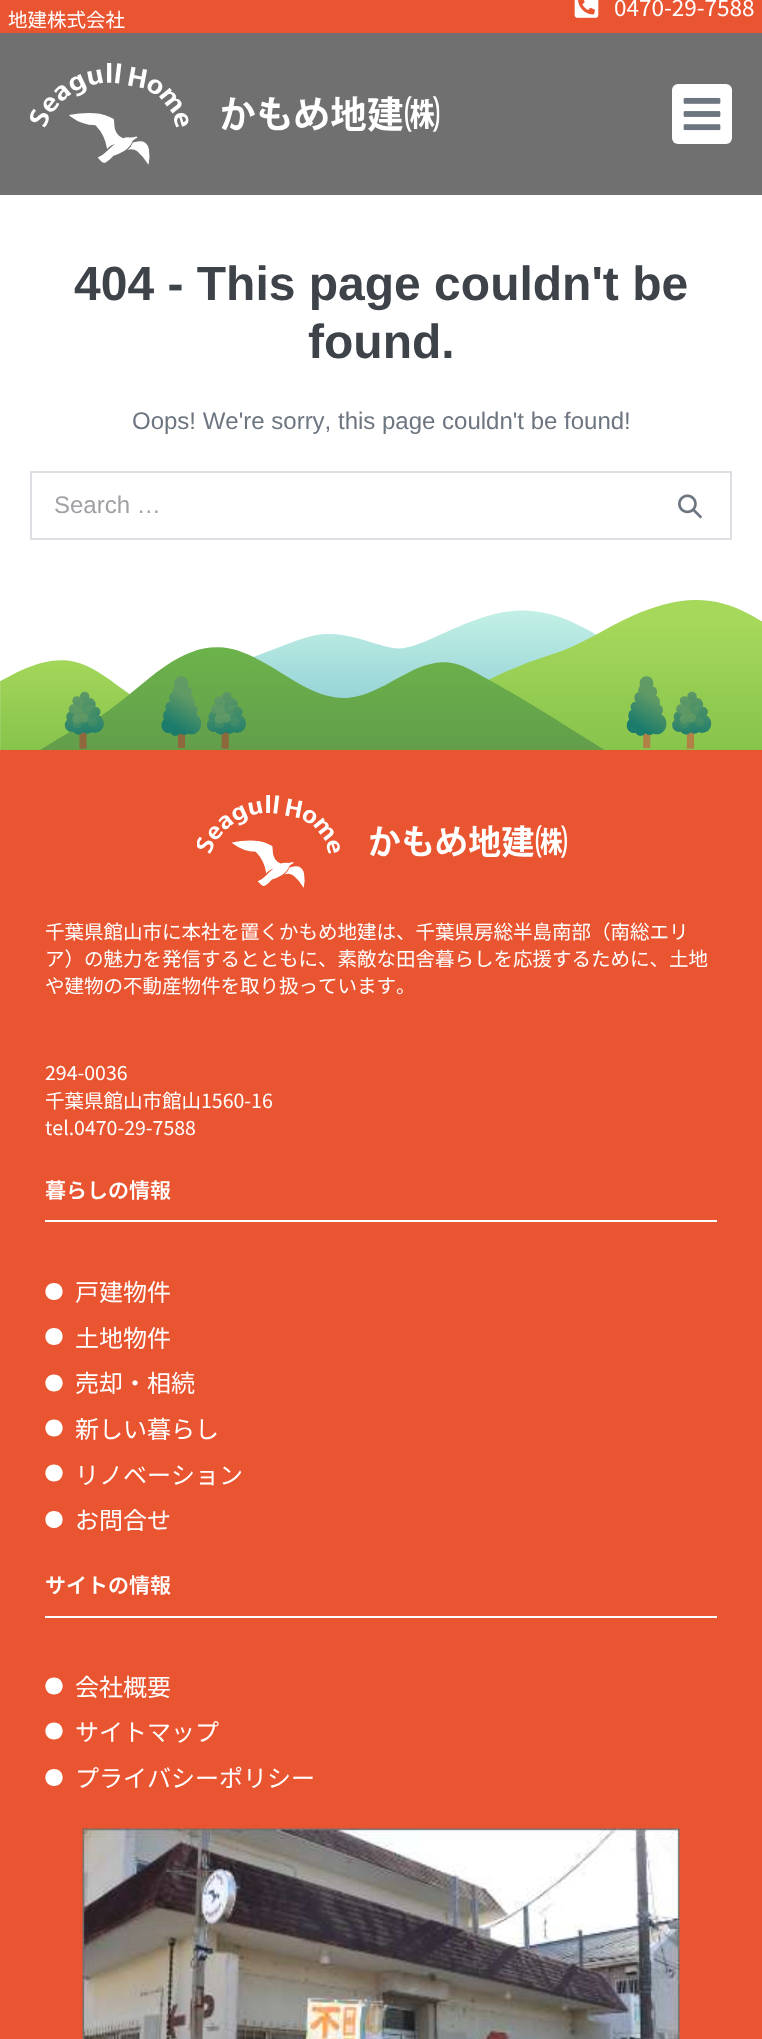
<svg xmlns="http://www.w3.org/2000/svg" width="762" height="2039">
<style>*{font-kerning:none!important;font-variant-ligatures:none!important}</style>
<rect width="100%" height="100%" fill="#fff"/>
<rect width="762" height="33" fill="#e95530"/>
<text x="8" y="27" style="font-family:Noto Sans JP;font-size:19.5px;fill:#fff">地建株式会社</text>
<image x="574" y="0" width="25" height="18" href="media/1.png"/>
<text x="614" y="16" style="font-family:Noto Sans JP;font-size:22.5px;fill:#fff">0470-29-7588</text>
<rect y="33" width="762" height="162" fill="#707070"/>
<image x="30" y="63" width="410" height="102" href="media/2.png"/>
<rect x="672" y="84" width="60" height="60" rx="6" fill="#fff"/>
<image x="683" y="97" width="38" height="34" href="media/3.png"/>
<text x="74" y="300" style="font-family:Liberation Sans;font-size:48px;font-weight:bold;fill:#3e4349">404 - This page couldn't be</text>
<text x="308" y="358" style="font-family:Liberation Sans;font-size:48px;font-weight:bold;fill:#3e4349">found.</text>
<text x="132" y="429" style="font-family:Liberation Sans;font-size:24px;fill:#6d7680">Oops! We're sorry, this page couldn't be found!</text>
<rect x="31" y="472" width="700" height="67" fill="none" stroke="#dedee5" stroke-width="2"/>
<text x="54" y="513" style="font-family:Liberation Sans;font-size:24px;fill:#9fa1a4">Search …</text>
<image x="678" y="494" width="24" height="25" href="media/4.png"/>
<image x="0" y="600" width="762" height="150" href="media/5.png"/>
<rect y="750" width="762" height="1289" fill="#e95530"/>
<image x="197" y="795" width="370" height="93" href="media/6.png"/>
<text x="45" y="939" style="font-family:Noto Sans JP;font-size:19.5px;fill:#fff">千葉県館山市に本社を置くかもめ地建は、千葉県房総半島南部（南総エリ</text>
<text x="45" y="966" style="font-family:Noto Sans JP;font-size:19.5px;fill:#fff">ア）の魅力を発信するとともに、素敵な田舎暮らしを応援するために、土地</text>
<text x="45" y="993" style="font-family:Noto Sans JP;font-size:19.5px;fill:#fff">や建物の不動産物件を取り扱っています。</text>
<text x="45" y="1080" style="font-family:Noto Sans JP;font-size:19.5px;fill:#fff">294-0036</text>
<text x="45" y="1108" style="font-family:Noto Sans JP;font-size:19.5px;fill:#fff">千葉県館山市館山1560-16</text>
<text x="45" y="1135" style="font-family:Noto Sans JP;font-size:19.5px;fill:#fff">tel.0470-29-7588</text>
<text x="45" y="1198" style="font-family:Noto Sans JP;font-size:21px;font-weight:600;fill:#fff">暮らしの情報</text>
<rect x="45" y="1220" width="672" height="2" fill="#fff"/>
<path d="M54 1283c-11.5 0-11.5 17 0 17c11.5 0 11.5-17 0-17z" fill="#fff"/>
<text x="75" y="1301" style="font-family:Noto Sans JP;font-size:24px;fill:#fff">戸建物件</text>
<path d="M54 1328c-11.5 0-11.5 17 0 17c11.5 0 11.5-17 0-17z" fill="#fff"/>
<text x="75" y="1347" style="font-family:Noto Sans JP;font-size:24px;fill:#fff">土地物件</text>
<path d="M54 1374.5c-11.5 0-11.5 17 0 17c11.5 0 11.5-17 0-17z" fill="#fff"/>
<text x="75" y="1392" style="font-family:Noto Sans JP;font-size:24px;fill:#fff">売却・相続</text>
<path d="M54 1419.5c-11.5 0-11.5 17 0 17c11.5 0 11.5-17 0-17z" fill="#fff"/>
<text x="75" y="1438" style="font-family:Noto Sans JP;font-size:24px;fill:#fff">新しい暮らし</text>
<path d="M54 1464.5c-11.5 0-11.5 17 0 17c11.5 0 11.5-17 0-17z" fill="#fff"/>
<text x="75" y="1484" style="font-family:Noto Sans JP;font-size:24px;fill:#fff">リノベーション</text>
<path d="M54 1511c-11.5 0-11.5 17 0 17c11.5 0 11.5-17 0-17z" fill="#fff"/>
<text x="75" y="1529" style="font-family:Noto Sans JP;font-size:24px;fill:#fff">お問合せ</text>
<text x="45" y="1593" style="font-family:Noto Sans JP;font-size:21px;font-weight:600;fill:#fff">サイトの情報</text>
<rect x="45" y="1616" width="672" height="2" fill="#fff"/>
<path d="M54 1677.5c-11.5 0-11.5 17 0 17c11.5 0 11.5-17 0-17z" fill="#fff"/>
<text x="75" y="1696" style="font-family:Noto Sans JP;font-size:24px;fill:#fff">会社概要</text>
<path d="M54 1722.5c-11.5 0-11.5 17 0 17c11.5 0 11.5-17 0-17z" fill="#fff"/>
<text x="75" y="1741" style="font-family:Noto Sans JP;font-size:24px;fill:#fff">サイトマップ</text>
<path d="M54 1769c-11.5 0-11.5 17 0 17c11.5 0 11.5-17 0-17z" fill="#fff"/>
<text x="75" y="1787" style="font-family:Noto Sans JP;font-size:24px;fill:#fff">プライバシーポリシー</text>
<image x="82" y="1828" width="598" height="211" href="media/7.png"/>
</svg>
